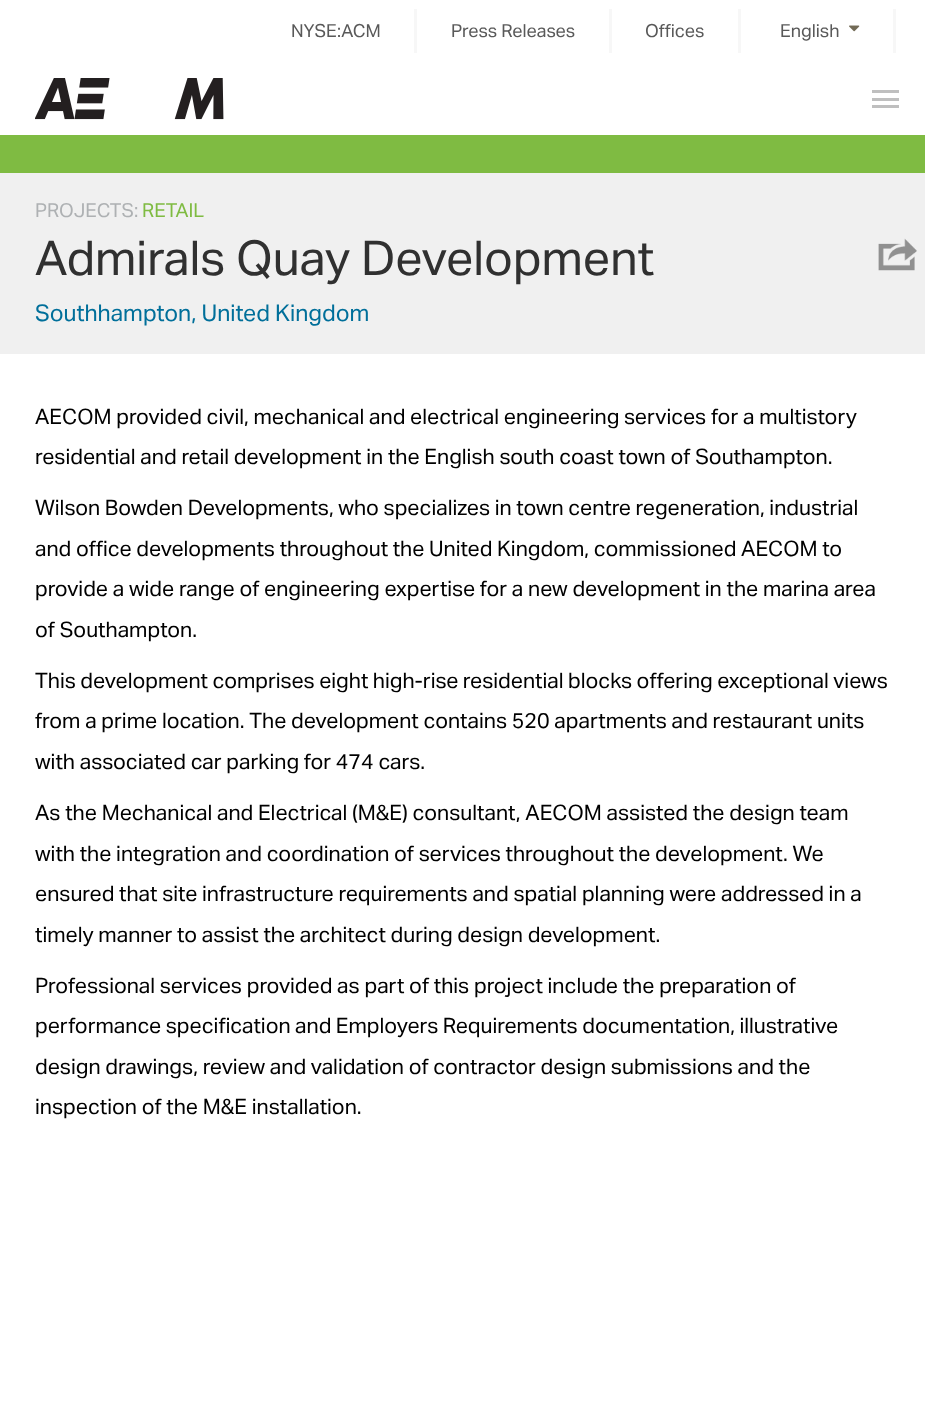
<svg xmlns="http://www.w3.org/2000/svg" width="925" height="1406">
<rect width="100%" height="100%" fill="#fff"/>
<rect x="414" y="9" width="3" height="44" fill="#f7f7f7"/>
<text x="291" y="37" style="font-family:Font;font-size:18px;fill:#595959">NYSE:ACM</text>
<rect x="609" y="9" width="3" height="44" fill="#f7f7f7"/>
<text x="451" y="37" style="font-family:Font;font-size:18px;fill:#595959">Press Releases</text>
<rect x="738" y="9" width="3" height="44" fill="#f7f7f7"/>
<text x="645" y="37" style="font-family:Font;font-size:18px;fill:#595959">Offices</text>
<rect x="893" y="9" width="3" height="44" fill="#f7f7f7"/>
<text x="780" y="37" style="font-family:Font;font-size:18px;fill:#595959">English</text>
<image x="849" y="25" width="11" height="7" href="media/1.png"/>
<image x="35" y="78" width="189" height="42" href="media/2.png"/>
<rect x="872" y="90" width="27" height="3" fill="#bfbfbf"/>
<rect x="872" y="98" width="27" height="3" fill="#bfbfbf"/>
<rect x="872" y="105" width="27" height="3" fill="#bfbfbf"/>
<rect y="173" width="925" height="181" fill="#f0f0f0"/>
<rect y="135" width="925" height="38" fill="#7fbb42"/>
<text x="35" y="217" style="font-family:Font;font-size:19.25px;fill:#aeb1b3">PROJECTS:</text>
<text x="142" y="217" style="font-family:Font;font-size:19.25px;fill:#7fbb42">RETAIL</text>
<text x="35" y="275" style="font-family:Font;font-size:48px;fill:#303030">Admirals Quay Development</text>
<image x="878" y="238" width="39" height="33" href="media/3.png"/>
<text x="35" y="321" style="font-family:Font;font-size:23px;fill:#006f9a">Southhampton, United Kingdom</text>
<text x="35" y="424" style="font-family:Font;font-size:21.3px;fill:#000">AECOM provided civil, mechanical and electrical engineering services for a multistory</text>
<text x="35" y="464" style="font-family:Font;font-size:21.3px;fill:#000">residential and retail development in the English south coast town of Southampton.</text>
<text x="35" y="515" word-spacing="-0.1" style="font-family:Font;font-size:21.3px;fill:#000">Wilson Bowden Developments, who specializes in town centre regeneration, industrial</text>
<text x="35" y="556" word-spacing="-0.1" style="font-family:Font;font-size:21.3px;fill:#000">and office developments throughout the United Kingdom, commissioned AECOM to</text>
<text x="35" y="596" style="font-family:Font;font-size:21.3px;fill:#000">provide a wide range of engineering expertise for a new development in the marina area</text>
<text x="35" y="637" style="font-family:Font;font-size:21.3px;fill:#000">of Southampton.</text>
<text x="35" y="688" word-spacing="-0.25" style="font-family:Font;font-size:21.3px;fill:#000">This development comprises eight high-rise residential blocks offering exceptional views</text>
<text x="35" y="728" style="font-family:Font;font-size:21.3px;fill:#000">from a prime location. The development contains 520 apartments and restaurant units</text>
<text x="35" y="769" style="font-family:Font;font-size:21.3px;fill:#000">with associated car parking for 474 cars.</text>
<text x="35" y="820" style="font-family:Font;font-size:21.3px;fill:#000">As the Mechanical and Electrical (M&amp;E) consultant, AECOM assisted the design team</text>
<text x="35" y="861" style="font-family:Font;font-size:21.3px;fill:#000">with the integration and coordination of services throughout the development. We</text>
<text x="35" y="901" style="font-family:Font;font-size:21.3px;fill:#000">ensured that site infrastructure requirements and spatial planning were addressed in a</text>
<text x="35" y="942" style="font-family:Font;font-size:21.3px;fill:#000">timely manner to assist the architect during design development.</text>
<text x="35" y="993" style="font-family:Font;font-size:21.3px;fill:#000">Professional services provided as part of this project include the preparation of</text>
<text x="35" y="1033" word-spacing="-0.25" style="font-family:Font;font-size:21.3px;fill:#000">performance specification and Employers Requirements documentation, illustrative</text>
<text x="35" y="1074" style="font-family:Font;font-size:21.3px;fill:#000">design drawings, review and validation of contractor design submissions and the</text>
<text x="35" y="1114" style="font-family:Font;font-size:21.3px;fill:#000">inspection of the M&amp;E installation.</text>
</svg>
